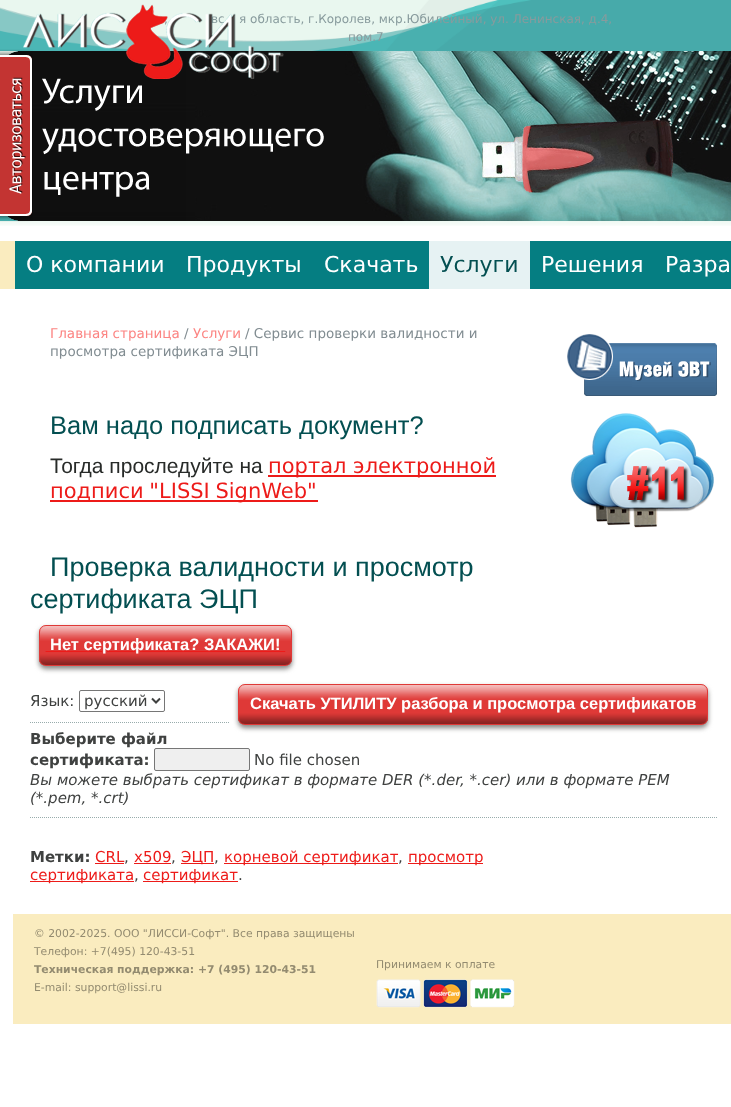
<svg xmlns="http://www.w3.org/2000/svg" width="731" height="1107">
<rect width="100%" height="100%" fill="#fff"/>
<image x="0" y="0" width="731" height="226" href="media/1.png"/>
<text x="164" y="23" style="font-family:DejaVu Sans;font-size:12px;fill:#889b9d">,</text>
<text x="211" y="23" style="font-family:DejaVu Sans;font-size:12px;fill:#889b9d">вс</text>
<text x="239" y="23" style="font-family:DejaVu Sans;font-size:12px;fill:#889b9d">я область, г.Королев, мкр.Юбилейный, ул. Ленинская, д.4,</text>
<image x="7" y="51" width="724" height="170" href="media/5.png"/>
<image x="23" y="4" width="261" height="75" href="media/2.png"/>
<text x="348" y="41" style="font-family:DejaVu Sans;font-size:12px;fill:#889b9d">пом.7</text>
<image x="0" y="51" width="18" height="170" href="media/4.png"/>
<image x="0" y="49" width="33" height="173" href="media/3.png"/>
<rect y="241" width="15" height="48" fill="#faecbf"/>
<rect x="15" y="241" width="716" height="48" fill="#057e82"/>
<text x="26" y="272" style="font-family:DejaVu Sans;font-size:22px;fill:#fff">О компании</text>
<text x="186" y="272" style="font-family:DejaVu Sans;font-size:22px;fill:#fff">Продукты</text>
<text x="324" y="272" style="font-family:DejaVu Sans;font-size:22px;fill:#fff">Скачать</text>
<rect x="429" y="241" width="101" height="48" fill="#e6f2f3"/>
<text x="440" y="272" style="font-family:DejaVu Sans;font-size:22px;fill:#034f51">Услуги</text>
<text x="541" y="272" style="font-family:DejaVu Sans;font-size:22px;fill:#fff">Решения</text>
<text x="665" y="272" style="font-family:DejaVu Sans;font-size:22px;fill:#fff">Разра</text>
<text x="50" y="338" style="font-family:DejaVu Sans;font-size:13.5px;fill:#fc8583">Главная страница</text>
<text x="184" y="338" style="font-family:DejaVu Sans;font-size:13.5px;fill:#818c91">/</text>
<text x="193" y="338" style="font-family:DejaVu Sans;font-size:13.5px;fill:#fc8583">Услуги</text>
<text x="245" y="338" style="font-family:DejaVu Sans;font-size:13.5px;fill:#818c91">/ Сервис проверки валидности и</text>
<text x="50" y="356" style="font-family:DejaVu Sans;font-size:13.5px;fill:#818c91">просмотра сертификата ЭЦП</text>
<image x="567" y="334" width="150" height="62" href="media/6.png"/>
<image x="570" y="413" width="144" height="115" href="media/7.png"/>
<text x="50" y="434" style="font-family:Liberation Sans;font-size:25.5px;fill:#034f51">Вам надо подписать документ?</text>
<text x="50" y="473" style="font-family:Liberation Sans;font-size:21px;fill:#282b29">Тогда проследуйте на</text>
<rect x="268" y="475" width="228" height="2" fill="#ed1b19"/>
<text x="268" y="473" style="font-family:DejaVu Sans;font-size:21px;fill:#ed1b19">портал электронной</text>
<rect x="50" y="500" width="268" height="2" fill="#ed1b19"/>
<text x="50" y="498" word-spacing="-1" style="font-family:DejaVu Sans;font-size:21px;fill:#ed1b19">подписи "LISSI SignWeb"</text>
<text x="50" y="576" style="font-family:Liberation Sans;font-size:27px;fill:#034f51">Проверка валидности и просмотр</text>
<text x="30" y="608" style="font-family:Liberation Sans;font-size:27px;fill:#034f51">сертификата ЭЦП</text>
<rect x="39" y="628" width="253" height="41" rx="7" fill="#858583" filter="blur(2.5px)"/>
<image x="39" y="625" width="253" height="40" href="media/8.png"/>
<rect x="39.5" y="625.5" width="252" height="40" rx="6.5" fill="none" stroke="#df3937"/>
<text x="50" y="650" style="font-family:Liberation Sans;font-size:16.5px;font-weight:bold;fill:#fff">Нет сертификата? ЗАКАЖИ!</text>
<text x="30" y="706" style="font-family:DejaVu Sans;font-size:15px;fill:#3f4140">Язык:</text>
<rect x="79.5" y="690.5" width="85" height="21" rx="1.5" fill="none" stroke="#767676"/>
<path d="M152 698.5l4 4l4-4" fill="none" stroke="#3f4140" stroke-width="2"/>
<text x="84" y="706" style="font-family:DejaVu Sans;font-size:15px;fill:#3f4140">русский</text>
<path d="M30 722.5h199" fill="none" stroke="#98acac" stroke-dasharray="1 1"/>
<text x="30" y="744" style="font-family:DejaVu Sans;font-size:15px;font-weight:bold;fill:#3f4140">Выберите файл</text>
<text x="30" y="765" style="font-family:DejaVu Sans;font-size:15px;font-weight:bold;fill:#3f4140">сертификата:</text>
<rect x="154.5" y="748.5" width="95" height="22" rx="1.5" fill="#efefef" stroke="#767676"/>
<text x="254" y="765" style="font-family:DejaVu Sans;font-size:15px;fill:#3f4140">No file chosen</text>
<text x="30" y="785" style="font-family:DejaVu Sans;font-size:15px;font-style:italic;fill:#3f4140">Вы можете выбрать сертификат в формате DER (*.der, *.cer) или в формате PEM</text>
<text x="30" y="803" style="font-family:DejaVu Sans;font-size:15px;font-style:italic;fill:#3f4140">(*.pem, *.crt)</text>
<rect x="238" y="687" width="470" height="41" rx="7" fill="#858583" filter="blur(2.5px)"/>
<image x="238" y="684" width="470" height="40" href="media/9.png"/>
<rect x="238.5" y="684.5" width="469" height="40" rx="6.5" fill="none" stroke="#df3937"/>
<text x="250" y="709" style="font-family:Liberation Sans;font-size:16.5px;font-weight:bold;fill:#fff">Скачать УТИЛИТУ разбора и просмотра сертификатов</text>
<path d="M30 817.5h687" fill="none" stroke="#98acac" stroke-dasharray="1 1"/>
<text x="30" y="862" style="font-family:DejaVu Sans;font-size:15px;font-weight:bold;fill:#3f4140">Метки:</text>
<text x="95" y="862" style="font-family:DejaVu Sans;font-size:15px;fill:#ed1b19">CRL</text>
<rect x="95" y="863" width="29" height="1" fill="#ed1b19"/>
<text x="124" y="862" style="font-family:DejaVu Sans;font-size:15px;fill:#3f4140">,</text>
<text x="134" y="862" style="font-family:DejaVu Sans;font-size:15px;fill:#ed1b19">x509</text>
<rect x="134" y="863" width="37" height="1" fill="#ed1b19"/>
<text x="171" y="862" style="font-family:DejaVu Sans;font-size:15px;fill:#3f4140">,</text>
<rect x="181" y="863" width="33" height="1" fill="#ed1b19"/>
<text x="181" y="862" style="font-family:DejaVu Sans;font-size:15px;fill:#ed1b19">ЭЦП</text>
<text x="214" y="862" style="font-family:DejaVu Sans;font-size:15px;fill:#3f4140">,</text>
<rect x="224" y="863" width="174" height="1" fill="#ed1b19"/>
<text x="224" y="862" style="font-family:DejaVu Sans;font-size:15px;fill:#ed1b19">корневой сертификат</text>
<text x="398" y="862" style="font-family:DejaVu Sans;font-size:15px;fill:#3f4140">,</text>
<rect x="408" y="863" width="75" height="1" fill="#ed1b19"/>
<text x="408" y="862" style="font-family:DejaVu Sans;font-size:15px;fill:#ed1b19">просмотр</text>
<rect x="30" y="881" width="104" height="1" fill="#ed1b19"/>
<text x="30" y="880" style="font-family:DejaVu Sans;font-size:15px;fill:#ed1b19">сертификата</text>
<text x="134" y="880" style="font-family:DejaVu Sans;font-size:15px;fill:#3f4140">,</text>
<rect x="143" y="881" width="95" height="1" fill="#ed1b19"/>
<text x="143" y="880" style="font-family:DejaVu Sans;font-size:15px;fill:#ed1b19">сертификат</text>
<text x="238" y="880" style="font-family:DejaVu Sans;font-size:15px;fill:#3f4140">.</text>
<rect x="13" y="914" width="718" height="110" fill="#faecbf"/>
<text x="34" y="937" style="font-family:DejaVu Sans;font-size:10.8px;fill:#938b70">© 2002-2025. ООО "ЛИССИ-Софт". Все права защищены</text>
<text x="34" y="955" style="font-family:DejaVu Sans;font-size:10.8px;fill:#938b70">Телефон: +7(495) 120-43-51</text>
<text x="34" y="973" style="font-family:DejaVu Sans;font-size:10.8px;font-weight:bold;fill:#938b70">Техническая поддержка: +7 (495) 120-43-51</text>
<text x="34" y="991" style="font-family:DejaVu Sans;font-size:10.8px;fill:#938b70">E-mail: support@lissi.ru</text>
<text x="376" y="968" style="font-family:DejaVu Sans;font-size:10.8px;fill:#938b70">Принимаем к оплате</text>
<image x="376" y="979" width="139" height="29" href="media/10.png"/>
</svg>
